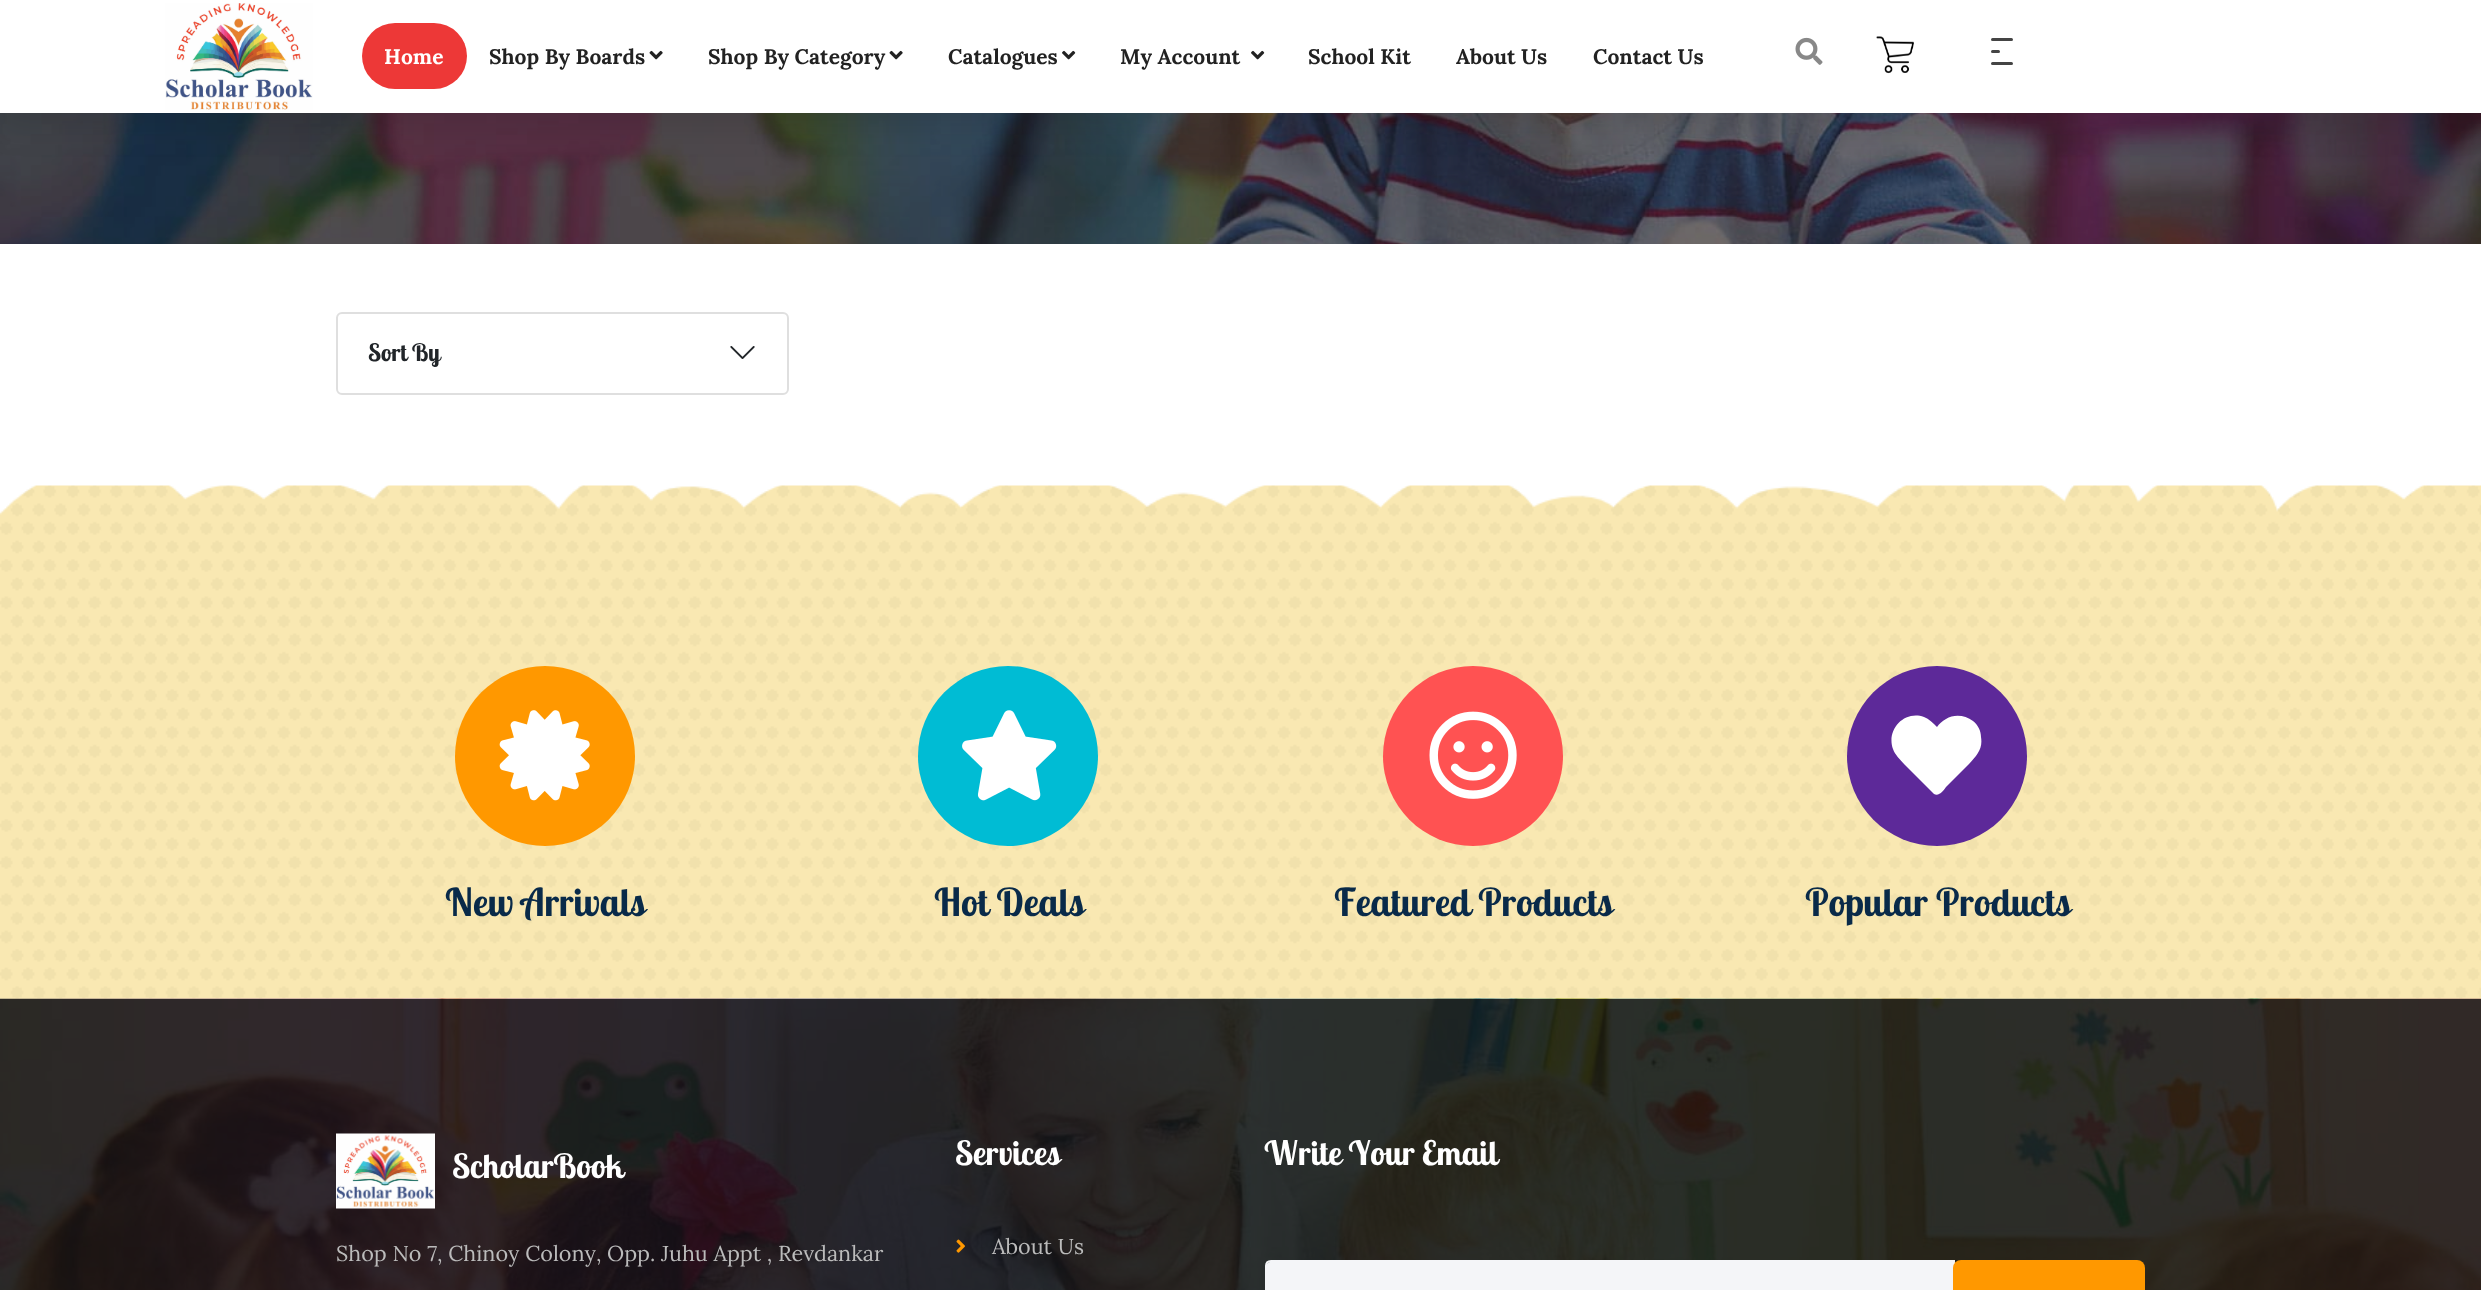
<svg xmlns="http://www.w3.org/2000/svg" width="2481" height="1290">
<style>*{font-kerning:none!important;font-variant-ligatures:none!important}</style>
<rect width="100%" height="100%" fill="#fff"/>
<image x="0" y="113" width="2481" height="131" href="media/6.png"/>
<rect y="15" width="2481" height="113" fill="#0000001a" filter="blur(15px)"/>
<rect width="2481" height="113" fill="#fff"/>
<image x="165" y="3" width="148" height="107" href="media/1.png"/>
<rect x="362" y="23" width="105" height="66" rx="33" fill="#ed3837"/>
<text x="384" y="64" style="font-family:Lora;font-size:21px;font-weight:bold;fill:#fff">Home</text>
<text x="489" y="64" style="font-family:Lora;font-size:21px;font-weight:bold;fill:#222">Shop By Boards</text>
<image x="649" y="50" width="14" height="10" href="media/2.png"/>
<text x="708" y="64" style="font-family:Lora;font-size:21px;font-weight:bold;fill:#222">Shop By Category</text>
<image x="889" y="50" width="14" height="10" href="media/2.png"/>
<text x="948" y="64" style="font-family:Lora;font-size:21px;font-weight:bold;fill:#222">Catalogues</text>
<image x="1062" y="50" width="14" height="10" href="media/3.png"/>
<text x="1120" y="64" style="font-family:Lora;font-size:21px;font-weight:bold;fill:#222">My Account</text>
<image x="1251" y="50" width="14" height="10" href="media/3.png"/>
<text x="1308" y="64" style="font-family:Lora;font-size:21px;font-weight:bold;fill:#222">School Kit</text>
<text x="1456" y="64" style="font-family:Lora;font-size:21px;font-weight:bold;fill:#222">About Us</text>
<text x="1593" y="64" style="font-family:Lora;font-size:21px;font-weight:bold;fill:#222">Contact Us</text>
<image x="1795" y="37" width="28" height="28" href="media/4.png"/>
<image x="1876" y="36" width="38" height="38" href="media/5.png"/>
<rect x="1991" y="50" width="9" height="3" rx="1.5" fill="#444"/>
<rect x="1991" y="38" width="22" height="3" rx="1.5" fill="#444"/>
<rect x="1991" y="62" width="22" height="3" rx="1.5" fill="#444"/>
<rect x="337" y="313" width="451" height="81" rx="5" fill="none" stroke="#dfdfdf" stroke-width="2"/>
<text x="368" y="361" style="font-family:Lobster Two;font-size:24px;font-weight:bold;fill:#212529">Sort By</text>
<image x="730" y="346" width="25" height="13" href="media/7.png"/>
<image x="0" y="485" width="2481" height="514" href="media/8.png"/>
<circle cx="545" cy="756" r="90" fill="#ff9800"/>
<image x="499" y="710" width="91" height="91" href="media/9.png"/>
<text x="445" y="916" style="font-family:Lobster Two;font-size:38.5px;font-weight:bold;fill:#092a49">New Arrivals</text>
<circle cx="1008" cy="756" r="90" fill="#00bcd4"/>
<image x="962" y="710" width="95" height="91" href="media/10.png"/>
<text x="934" y="916" style="font-family:Lobster Two;font-size:38.5px;font-weight:bold;fill:#092a49">Hot Deals</text>
<circle cx="1473" cy="756" r="90" fill="#ff5252"/>
<image x="1429" y="711" width="88" height="88" href="media/11.png"/>
<text x="1334" y="916" style="font-family:Lobster Two;font-size:38.5px;font-weight:bold;fill:#092a49">Featured Products</text>
<circle cx="1937" cy="756" r="90" fill="#5d2999"/>
<path d="M1973 721c5 4 8 10 8 16c2 12-4 18-12 27l-23 23c-2 3-7 10-12 7l-30-30c-4-5-9-9-11-15c-7-19 11-39 31-32c5 2 9 6 13 10c2-3 5-6 9-8c8-5 19-4 27 2z" fill="#fff"/>
<text x="1805" y="916" style="font-family:Lobster Two;font-size:38.5px;font-weight:bold;fill:#092a49">Popular Products</text>
<image x="0" y="998" width="2481" height="292" href="media/12.png"/>
<image x="336" y="1133" width="99" height="76" href="media/13.png"/>
<text x="452" y="1178" style="font-family:Lobster Two;font-size:33.5px;font-weight:bold;fill:#fff">ScholarBook</text>
<text x="336" y="1261" style="font-family:Lora;font-size:21.6px;fill:#bbb">Shop No 7, Chinoy Colony, Opp. Juhu Appt , Revdankar</text>
<text x="955" y="1165" style="font-family:Lobster Two;font-size:33.5px;font-weight:bold;fill:#fff">Services</text>
<image x="956" y="1239" width="9" height="14" href="media/14.png"/>
<text x="992" y="1254" style="font-family:Lora;font-size:21.6px;fill:#bbb">About Us</text>
<text x="1264" y="1165" style="font-family:Lobster Two;font-size:33.5px;font-weight:bold;fill:#fff">Write Your Email</text>
<path d="M1271 1262h682v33h-682c-3 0-5-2-5-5v-23c0-3 2-5 5-5z" fill="#f4f5f8"/>
<path d="M1271 1261h683v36h-683c-3 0-5-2-5-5v-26c0-3 2-5 5-5z" fill="none" stroke="#f4f5f8" stroke-width="2"/>
<rect x="1953" y="1260" width="192" height="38" rx="8" fill="#ff9800"/>
</svg>
